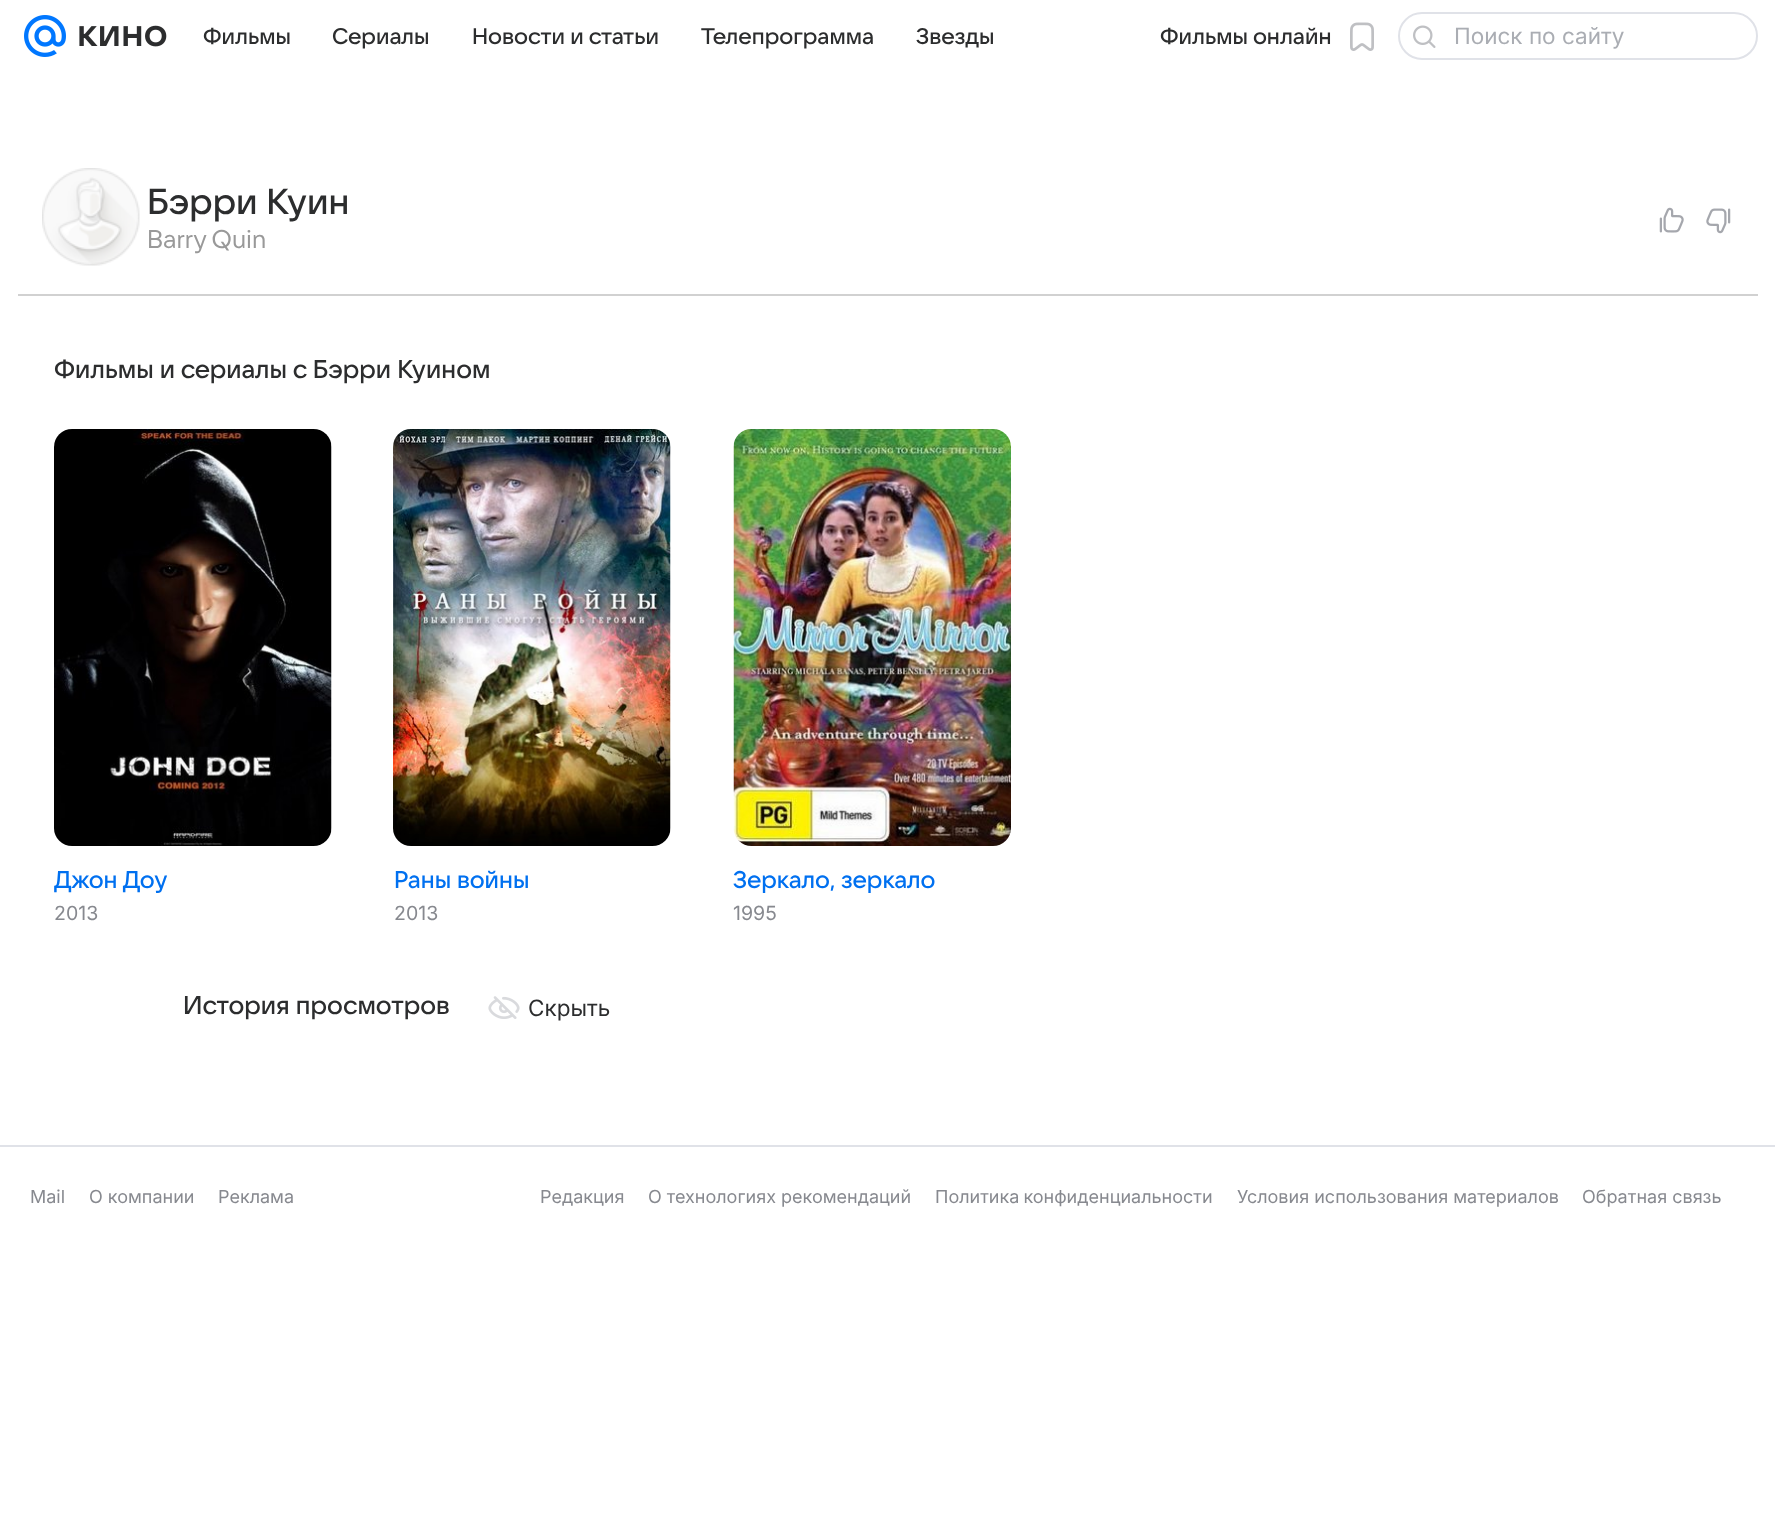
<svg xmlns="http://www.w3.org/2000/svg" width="1775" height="1519">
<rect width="100%" height="100%" fill="#fff"/>
<image x="24" y="15" width="42" height="42" href="media/1.png"/>
<image x="79" y="25" width="88" height="22" href="media/2.png"/>
<text x="203" y="44" style="font-family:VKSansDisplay;font-size:22.5px;font-weight:500;fill:#2c2d2e">Фильмы</text>
<text x="332" y="44" style="font-family:VKSansDisplay;font-size:22.5px;font-weight:500;fill:#2c2d2e">Сериалы</text>
<text x="472" y="44" style="font-family:VKSansDisplay;font-size:22.5px;font-weight:500;fill:#2c2d2e">Новости и статьи</text>
<text x="701" y="44" style="font-family:VKSansDisplay;font-size:22.5px;font-weight:500;fill:#2c2d2e">Телепрограмма</text>
<text x="916" y="44" style="font-family:VKSansDisplay;font-size:22.5px;font-weight:500;fill:#2c2d2e">Звезды</text>
<text x="1160" y="44" style="font-family:VKSansDisplay;font-size:22.5px;font-weight:500;fill:#2c2d2e">Фильмы онлайн</text>
<image x="1350" y="22" width="24" height="29" href="media/3.png"/>
<rect x="1399" y="13" width="358" height="46" rx="23" fill="none" stroke="#e0e2e8" stroke-width="2"/>
<image x="1413" y="25" width="23" height="23" href="media/4.png"/>
<text x="1454" y="44" style="font-family:Inter;font-size:22.5px;fill:#aaadb3">Поиск по сайту</text>
<rect x="18" y="294" width="1740" height="2" fill="#d1d1d1"/>
<image x="42" y="168" width="98" height="98" href="media/5.png"/>
<text x="147" y="214" style="font-family:VKSansDisplay;font-size:36px;font-weight:500;fill:#2c2d2e">Бэрри Куин</text>
<text x="147" y="248" style="font-family:VKSansDisplay;font-size:25.5px;fill:#999">Barry Quin</text>
<image x="1659" y="207" width="25" height="26" href="media/6.png"/>
<image x="1706" y="208" width="25" height="26" href="media/7.png"/>
<text x="54" y="378" style="font-family:VKSansDisplay;font-size:25.5px;font-weight:500;fill:#2c2d2e">Фильмы и сериалы с Бэрри Куином</text>
<image x="54" y="429" width="278" height="417" href="media/8.png"/>
<text x="54" y="888" style="font-family:VKSansDisplay;font-size:24px;font-weight:500;fill:#0070f0">Джон Доу</text>
<text x="54" y="920" style="font-family:Inter;font-size:19.5px;fill:#87898f">2013</text>
<image x="393" y="429" width="278" height="417" href="media/9.png"/>
<text x="394" y="888" style="font-family:VKSansDisplay;font-size:24px;font-weight:500;fill:#0070f0">Раны войны</text>
<text x="394" y="920" style="font-family:Inter;font-size:19.5px;fill:#87898f">2013</text>
<image x="733" y="429" width="278" height="417" href="media/10.png"/>
<text x="733" y="888" style="font-family:VKSansDisplay;font-size:24px;font-weight:500;fill:#0070f0">Зеркало, зеркало</text>
<text x="733" y="920" style="font-family:Inter;font-size:19.5px;fill:#87898f">1995</text>
<text x="183" y="1014" style="font-family:VKSansDisplay;font-size:25.5px;font-weight:500;fill:#2c2d2e">История просмотров</text>
<image x="488" y="996" width="32" height="23" href="media/11.png"/>
<text x="528" y="1016" style="font-family:Inter;font-size:22.5px;fill:#2c2d2e">Скрыть</text>
<rect y="1145" width="1775" height="2" fill="#e0e2e8"/>
<text x="30" y="1203" style="font-family:Inter;font-size:18px;fill:#87898f">Mail</text>
<text x="89" y="1203" style="font-family:Inter;font-size:18px;fill:#87898f">О компании</text>
<text x="218" y="1203" style="font-family:Inter;font-size:18px;fill:#87898f">Реклама</text>
<text x="540" y="1203" style="font-family:Inter;font-size:18px;fill:#87898f">Редакция</text>
<text x="648" y="1203" style="font-family:Inter;font-size:18px;fill:#87898f">О технологиях рекомендаций</text>
<text x="935" y="1203" word-spacing="-1" style="font-family:Inter;font-size:18px;fill:#87898f">Политика конфиденциальности</text>
<text x="1237" y="1203" style="font-family:Inter;font-size:18px;fill:#87898f">Условия использования материалов</text>
<text x="1582" y="1203" style="font-family:Inter;font-size:18px;fill:#87898f">Обратная связь</text>
</svg>
